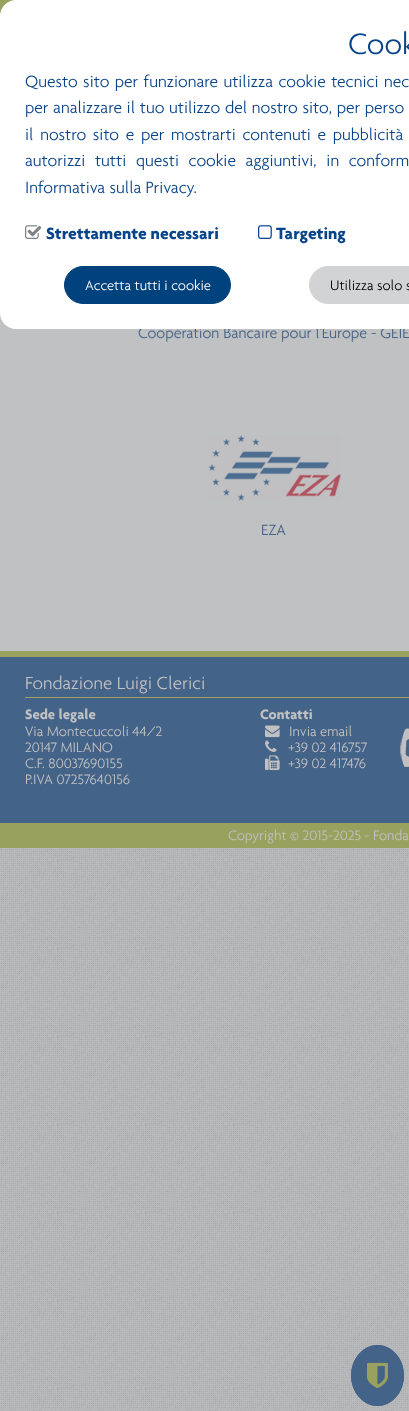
<svg xmlns="http://www.w3.org/2000/svg" width="409" height="1411">
<rect width="100%" height="100%" fill="#fff"/>
<image x="0" y="848" width="409" height="563" href="media/1.png"/>
<image x="0" y="0" width="16" height="16" href="media/2.png"/>
<rect x="4.5" y="2.5" width="64" height="18" rx="5.5" fill="none" stroke="#c0c1c2"/>
<rect y="313" width="409" height="338" fill="#c0c1c2"/>
<text x="138" y="338" style="font-family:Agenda;font-size:16.1px;font-weight:300;fill:#446388">Coopération Bancaire pour l'Europe - GEIE</text>
<rect width="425" height="329" rx="16" fill="#fff"/>
<text x="348" y="54" style="font-family:Agenda;font-size:32px;font-weight:300;fill:#08448a">Cook</text>
<text x="25" y="87" word-spacing="1.25" style="font-family:Agenda;font-size:17.6px;font-weight:300;fill:#08448a">Questo sito per funzionare utilizza cookie tecnici nec</text>
<text x="25" y="113" word-spacing="0.5" style="font-family:Agenda;font-size:17.6px;font-weight:300;fill:#08448a">per analizzare il tuo utilizzo del nostro sito, per perso</text>
<text x="25" y="140" word-spacing="2.5" style="font-family:Agenda;font-size:17.6px;font-weight:300;fill:#08448a">il nostro sito e per mostrarti contenuti e pubblicità</text>
<text x="25" y="166" word-spacing="5.5" style="font-family:Agenda;font-size:17.6px;font-weight:300;fill:#08448a">autorizzi tutti questi cookie aggiuntivi, in conform</text>
<text x="25" y="193" style="font-family:Agenda;font-size:17.6px;font-weight:300;fill:#08448a">Informativa sulla Privacy.</text>
<image x="25" y="225" width="17" height="14" href="media/3.png"/>
<text x="46" y="239" style="font-family:Agenda;font-size:17.6px;font-weight:bold;fill:#08448a">Strettamente necessari</text>
<image x="258" y="225" width="14" height="14" href="media/4.png"/>
<text x="276" y="239" style="font-family:Agenda;font-size:17.6px;font-weight:bold;fill:#08448a">Targeting</text>
<rect x="64.5" y="266.5" width="166" height="37" rx="18.5" fill="#00427e" stroke="#00427e"/>
<text x="85" y="290" style="font-family:Agenda;font-size:14.75px;font-weight:300;fill:#fff">Accetta tutti i cookie</text>
<rect x="309.5" y="266.5" width="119" height="37" rx="18.5" fill="#d1d3d4" stroke="#d1d3d4"/>
<text x="330" y="290" style="font-family:Agenda;font-size:14.75px;font-weight:300;fill:#000">Utilizza solo s</text>
<image x="208" y="435" width="133" height="66" href="media/5.png"/>
<text x="261" y="535" style="font-family:Agenda;font-size:16.1px;font-weight:300;fill:#446388">EZA</text>
<rect y="657" width="409" height="166" fill="#446388"/>
<rect y="823" width="409" height="25" fill="#98a15e"/>
<rect y="651" width="409" height="6" fill="#98a15e"/>
<rect x="25" y="697" width="384" height="1" fill="#98a15e"/>
<text x="25" y="689" style="font-family:Agenda;font-size:19px;font-weight:300;fill:#c0c1c2">Fondazione Luigi Clerici</text>
<text x="25" y="719" style="font-family:Agenda;font-size:14.75px;font-weight:bold;fill:#c0c1c2">Sede legale</text>
<text x="25" y="736" style="font-family:Agenda;font-size:14.75px;font-weight:300;fill:#c0c1c2">Via Montecuccoli 44/2</text>
<text x="25" y="752" style="font-family:Agenda;font-size:14.75px;font-weight:300;fill:#c0c1c2">20147 MILANO</text>
<text x="25" y="768" style="font-family:Agenda;font-size:14.75px;font-weight:300;fill:#c0c1c2">C.F. 80037690155</text>
<text x="25" y="784" style="font-family:Agenda;font-size:14.75px;font-weight:300;fill:#c0c1c2">P.IVA 07257640156</text>
<text x="260" y="719" style="font-family:Agenda;font-size:14.75px;font-weight:bold;fill:#c0c1c2">Contatti</text>
<image x="265" y="725" width="15" height="13" href="media/6.png"/>
<text x="289" y="736" style="font-family:Agenda;font-size:14.75px;font-weight:300;fill:#c0c1c2">Invia email</text>
<image x="265" y="740" width="12" height="12" href="media/7.png"/>
<text x="288" y="752" style="font-family:Agenda;font-size:14.75px;font-weight:300;fill:#c0c1c2">+39 02 416757</text>
<image x="265" y="755" width="15" height="16" href="media/8.png"/>
<text x="288" y="768" style="font-family:Agenda;font-size:14.75px;font-weight:300;fill:#c0c1c2">+39 02 417476</text>
<image x="400" y="728" width="9" height="39" href="media/9.png"/>
<text x="228" y="840" style="font-family:Agenda;font-size:14.75px;font-weight:300;fill:#c0c1c2">Copyright © 2015-2025 - Fonda</text>
<ellipse cx="377.5" cy="1375.5" rx="26.5" ry="30.5" fill="#446388"/>
<path d="M377.5 1345.5c14.5 0 26 13.5 26 30c0 16.5-11.5 30-26 30c-14.5 0-26-13.5-26-30c0-16.5 11.5-30 26-30z" fill="none" stroke="#446388"/>
<image x="367" y="1362" width="21" height="27" href="media/10.png"/>
</svg>
